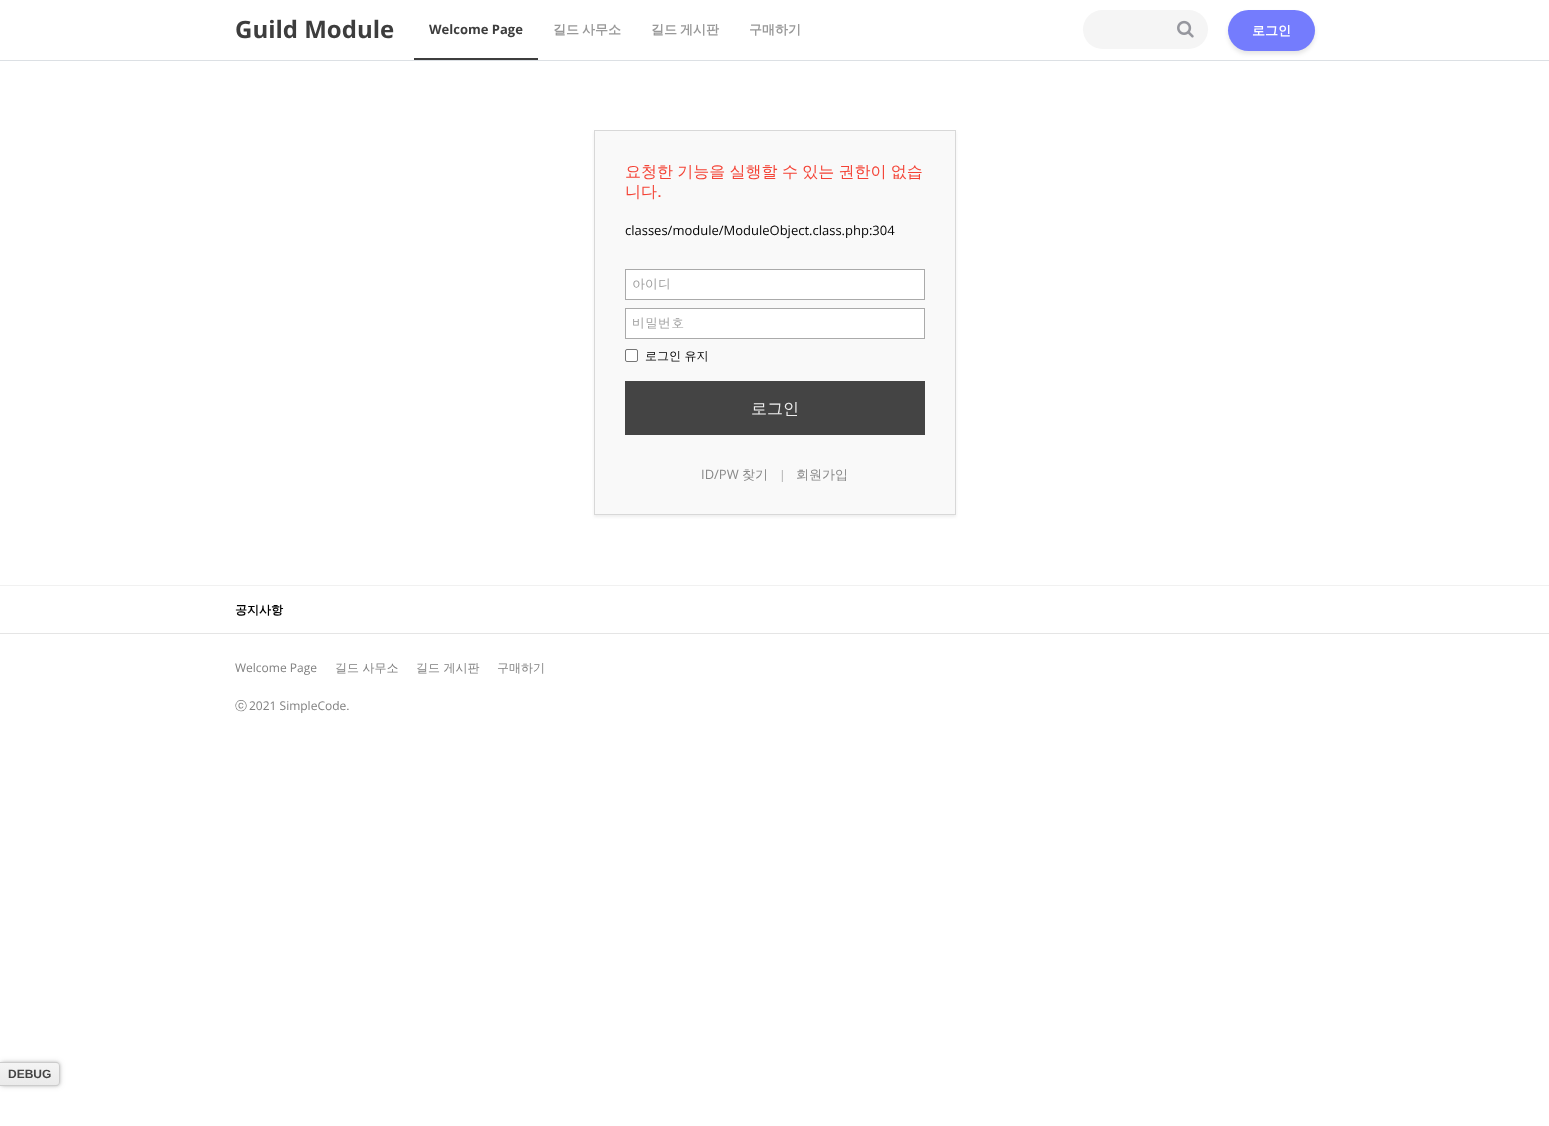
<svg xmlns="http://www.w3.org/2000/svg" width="1549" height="1126">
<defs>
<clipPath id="clip1"><rect x="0" y="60" width="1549" height="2"/></clipPath>
<clipPath id="clip2"><path d="M0 1062h56c2 0 4 2 4 4v16c0 2-2 4-4 4h-56z"/></clipPath>
<linearGradient id="g1" gradientUnits="userSpaceOnUse" x1="30" y1="1063" x2="30" y2="1085"><stop offset="0" stop-color="#f4f4f4"/><stop offset="1" stop-color="#eaeaea"/></linearGradient>
</defs>
<rect width="100%" height="100%" fill="#fff"/>
<g clip-path="url(#clip1)">
<rect y="1" width="1549" height="60" fill="#51637833" filter="blur(0.5px)"/>
</g>
<text x="235" y="38" style="font-family:Open Sans;font-size:24px;font-weight:bold;fill:#3d3d3d">Guild Module</text>
<rect x="414" y="58" width="124" height="2" fill="#3d3d3d"/>
<text x="429" y="34" style="font-family:Open Sans;font-size:13px;font-weight:bold;fill:#3d3d3d">Welcome Page</text>
<text x="553" y="34" word-spacing="-1" style="font-family:WenQuanYi Zen Hei;font-size:13px;font-weight:bold;fill:#999">길드 사무소</text>
<text x="651" y="34" word-spacing="-1" style="font-family:WenQuanYi Zen Hei;font-size:13px;font-weight:bold;fill:#999">길드 게시판</text>
<text x="749" y="34" style="font-family:WenQuanYi Zen Hei;font-size:13px;font-weight:bold;fill:#999">구매하기</text>
<rect x="1083" y="10" width="125" height="39" rx="19.5" fill="#f5f5f5"/>
<image x="1177" y="20" width="17" height="18" href="media/1.png"/>
<rect x="1228" y="13" width="87" height="41" rx="20.5" fill="#0000001a" filter="blur(2px)"/>
<rect x="1228" y="10" width="87" height="41" rx="20.5" fill="#747cfd"/>
<text x="1252" y="35" style="font-family:WenQuanYi Zen Hei;font-size:13px;font-weight:bold;fill:#fff">로그인</text>
<rect x="594" y="132" width="362" height="385" fill="#eee" filter="blur(1.5px)"/>
<rect x="595" y="132" width="360" height="382" fill="#f9f9f9"/>
<rect x="594.5" y="130.5" width="361" height="384" fill="none" stroke="#d8d8d8"/>
<text x="625" y="177" word-spacing="-0.5" style="font-family:WenQuanYi Zen Hei;font-size:16px;font-weight:500;fill:#f44336">요청한 기능을 실행할 수 있는 권한이 없습</text>
<text x="625" y="197" style="font-family:WenQuanYi Zen Hei;font-size:16px;font-weight:500;fill:#f44336">니다.</text>
<text x="625" y="235" style="font-family:Open Sans;font-size:13px;fill:#000">classes/module/ModuleObject.class.php:304</text>
<rect x="625.5" y="269.5" width="299" height="30" fill="#fff" stroke="#aaa"/>
<text x="632" y="289" style="font-family:Dotum;font-size:13px;fill:#999">아이디</text>
<rect x="625.5" y="308.5" width="299" height="30" fill="#fff" stroke="#aaa"/>
<text x="632" y="328" style="font-family:Dotum;font-size:13px;fill:#999">비밀번호</text>
<rect x="625.5" y="349.5" width="12" height="12" rx="1.5" fill="#fff" stroke="#767676"/>
<text x="645" y="360" style="font-family:WenQuanYi Zen Hei;font-size:12px;font-weight:500;fill:#000">로그인 유지</text>
<rect x="625" y="381" width="300" height="54" fill="#444"/>
<text x="751" y="414" style="font-family:WenQuanYi Zen Hei;font-size:16px;font-weight:500;fill:#eee">로그인</text>
<text x="701" y="479" style="font-family:Open Sans;font-size:13px;fill:#888">ID/PW</text>
<text x="742" y="479" style="font-family:WenQuanYi Zen Hei;font-size:13px;font-weight:500;fill:#888">찾기</text>
<text x="779" y="479" style="font-family:Open Sans;font-size:12px;fill:#aaa">|</text>
<text x="796" y="479" style="font-family:WenQuanYi Zen Hei;font-size:13px;font-weight:500;fill:#888">회원가입</text>
<rect y="585" width="1549" height="1" fill="#f1f1f1"/>
<rect y="633" width="1549" height="1" fill="#e5e5e5"/>
<text x="235" y="614" style="font-family:WenQuanYi Zen Hei;font-size:12px;font-weight:bold;fill:#000">공지사항</text>
<text x="235" y="672" style="font-family:Open Sans;font-size:12px;fill:#808080">Welcome Page</text>
<text x="335" y="672" style="font-family:WenQuanYi Zen Hei;font-size:12px;font-weight:500;fill:#808080">길드 사무소</text>
<text x="416" y="672" style="font-family:WenQuanYi Zen Hei;font-size:12px;font-weight:500;fill:#808080">길드 게시판</text>
<text x="497" y="672" style="font-family:WenQuanYi Zen Hei;font-size:12px;font-weight:500;fill:#808080">구매하기</text>
<text x="235" y="710" style="font-family:WenQuanYi Zen Hei;font-size:12px;font-weight:500;fill:#808080">ⓒ</text>
<text x="249" y="710" style="font-family:Open Sans;font-size:12px;fill:#808080">2021 SimpleCode</text>
<text x="346" y="710" style="font-family:WenQuanYi Zen Hei;font-size:12px;font-weight:500;fill:#808080">.</text>
<rect y="1062" width="60" height="24" rx="4" fill="#0000001f" filter="blur(3px)"/>
<rect y="1062" width="60" height="24" rx="4" fill="#0000002e" filter="blur(1.5px)"/>
<g clip-path="url(#clip2)">
<rect y="1063" width="60" height="22" fill="url(#g1)"/>
</g>
<path d="M0 1062h56c2 0 4 2 4 4v16c0 2-2 4-4 4h-56zm0 1h56c2 0 3 1 3 3v16c0 2-1 3-3 3h-56z" fill="#ccc" fill-rule="evenodd"/>
<text x="8" y="1078" style="font-family:Liberation Sans;font-size:12px;font-weight:bold;fill:#444">DEBUG</text>
</svg>
